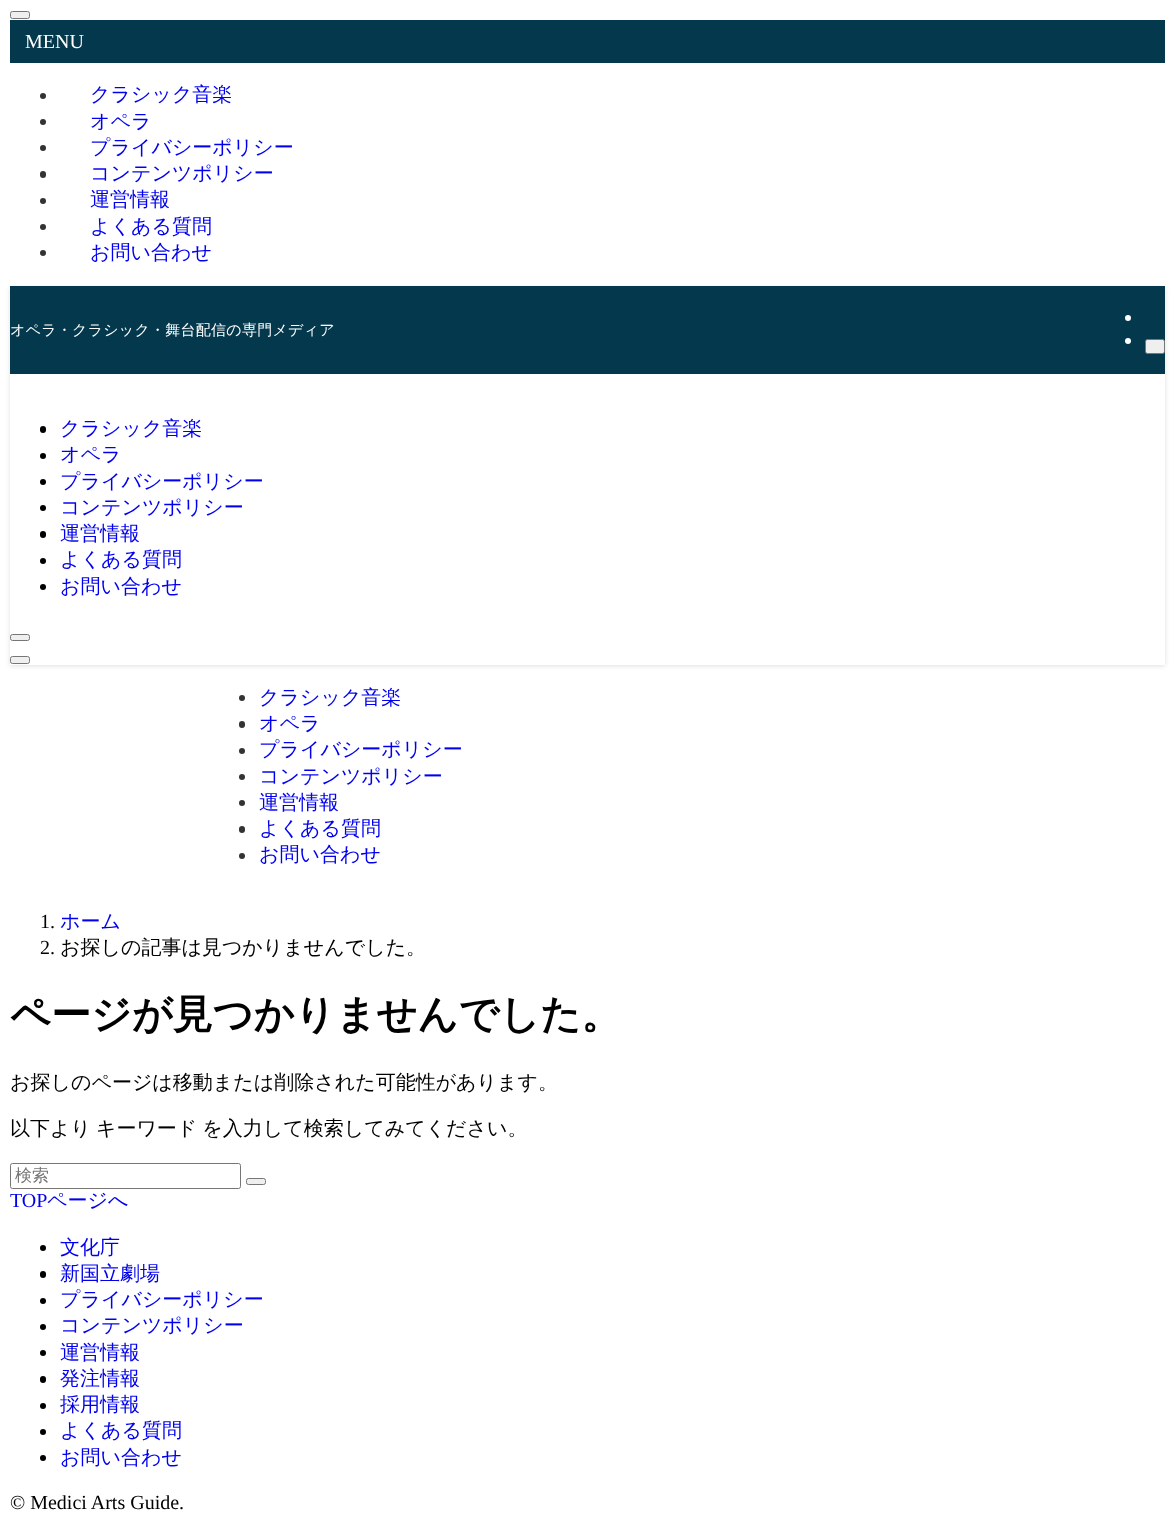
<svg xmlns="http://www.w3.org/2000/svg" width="1175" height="1524">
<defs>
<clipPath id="clip1"><path d="M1 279h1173v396h-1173zm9 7h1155v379h-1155z" clip-rule="evenodd"/></clipPath>
</defs>
<rect width="100%" height="100%" fill="#fff"/>
<rect x="10.5" y="11.5" width="19" height="7" rx="2" fill="#efefef" stroke="#767676"/>
<rect x="10" y="20" width="1155" height="43" fill="#04384c"/>
<text x="25" y="48" style="font-family:Liberation Serif;font-size:20px;fill:#fff">MENU</text>
<circle cx="43" cy="96" r="3" fill="#333"/>
<text x="90" y="101" style="font-family:WenQuanYi Zen Hei;font-size:20px;font-weight:500;fill:#00e">クラシック音楽</text>
<circle cx="43" cy="122" r="3" fill="#333"/>
<text x="90" y="128" style="font-family:WenQuanYi Zen Hei;font-size:20px;font-weight:500;fill:#00e">オペラ</text>
<circle cx="43" cy="148" r="3" fill="#333"/>
<text x="90" y="154" style="font-family:WenQuanYi Zen Hei;font-size:20px;font-weight:500;fill:#00e">プライバシーポリシー</text>
<rect x="40" y="171" width="6" height="7" rx="3" fill="#333"/>
<text x="90" y="180" style="font-family:WenQuanYi Zen Hei;font-size:20px;font-weight:500;fill:#00e">コンテンツポリシー</text>
<circle cx="43" cy="201" r="3" fill="#333"/>
<text x="90" y="206" style="font-family:WenQuanYi Zen Hei;font-size:20px;font-weight:500;fill:#00e">運営情報</text>
<circle cx="43" cy="227" r="3" fill="#333"/>
<text x="90" y="233" style="font-family:WenQuanYi Zen Hei;font-size:20px;font-weight:500;fill:#00e">よくある質問</text>
<circle cx="43" cy="253" r="3" fill="#333"/>
<text x="90" y="259" style="font-family:WenQuanYi Zen Hei;font-size:20px;font-weight:500;fill:#00e">お問い合わせ</text>
<g clip-path="url(#clip1)">
<rect x="10" y="288" width="1155" height="378" fill="#0000001f" filter="blur(2.5px)"/>
</g>
<rect x="10" y="286" width="1155" height="88" fill="#04384c"/>
<text x="10" y="335" style="font-family:WenQuanYi Zen Hei;font-size:15px;font-weight:500;letter-spacing:0.25px;fill:#fff">オペラ・クラシック・舞台配信の専門メディア</text>
<circle cx="1128" cy="318" r="3" fill="#fff"/>
<circle cx="1128" cy="341" r="3" fill="#fff"/>
<rect x="1145.5" y="339.5" width="19" height="14" rx="2" fill="#efefef" stroke="#767676"/>
<rect x="40" y="426" width="6" height="7" rx="3" fill="#000"/>
<text x="60" y="435" style="font-family:WenQuanYi Zen Hei;font-size:20px;font-weight:500;fill:#00e">クラシック音楽</text>
<circle cx="43" cy="456" r="3" fill="#000"/>
<text x="60" y="461" style="font-family:WenQuanYi Zen Hei;font-size:20px;font-weight:500;fill:#00e">オペラ</text>
<circle cx="43" cy="482" r="3" fill="#000"/>
<text x="60" y="488" style="font-family:WenQuanYi Zen Hei;font-size:20px;font-weight:500;fill:#00e">プライバシーポリシー</text>
<circle cx="43" cy="508" r="3" fill="#000"/>
<text x="60" y="514" style="font-family:WenQuanYi Zen Hei;font-size:20px;font-weight:500;fill:#00e">コンテンツポリシー</text>
<rect x="40" y="531" width="6" height="7" rx="3" fill="#000"/>
<text x="60" y="540" style="font-family:WenQuanYi Zen Hei;font-size:20px;font-weight:500;fill:#00e">運営情報</text>
<circle cx="43" cy="561" r="3" fill="#000"/>
<text x="60" y="566" style="font-family:WenQuanYi Zen Hei;font-size:20px;font-weight:500;fill:#00e">よくある質問</text>
<circle cx="43" cy="587" r="3" fill="#000"/>
<text x="60" y="593" style="font-family:WenQuanYi Zen Hei;font-size:20px;font-weight:500;fill:#00e">お問い合わせ</text>
<rect x="10.5" y="634.5" width="19" height="6" rx="2" fill="#efefef" stroke="#767676"/>
<rect x="10.5" y="656.5" width="19" height="7" rx="2" fill="#efefef" stroke="#767676"/>
<circle cx="242" cy="698" r="3" fill="#333"/>
<text x="259" y="704" style="font-family:WenQuanYi Zen Hei;font-size:20px;font-weight:500;fill:#00e">クラシック音楽</text>
<rect x="239" y="721" width="6" height="7" rx="3" fill="#333"/>
<text x="259" y="730" style="font-family:WenQuanYi Zen Hei;font-size:20px;font-weight:500;fill:#00e">オペラ</text>
<circle cx="242" cy="751" r="3" fill="#333"/>
<text x="259" y="756" style="font-family:WenQuanYi Zen Hei;font-size:20px;font-weight:500;fill:#00e">プライバシーポリシー</text>
<circle cx="242" cy="777" r="3" fill="#333"/>
<text x="259" y="783" style="font-family:WenQuanYi Zen Hei;font-size:20px;font-weight:500;fill:#00e">コンテンツポリシー</text>
<circle cx="242" cy="803" r="3" fill="#333"/>
<text x="259" y="809" style="font-family:WenQuanYi Zen Hei;font-size:20px;font-weight:500;fill:#00e">運営情報</text>
<rect x="239" y="826" width="6" height="7" rx="3" fill="#333"/>
<text x="259" y="835" style="font-family:WenQuanYi Zen Hei;font-size:20px;font-weight:500;fill:#00e">よくある質問</text>
<circle cx="242" cy="856" r="3" fill="#333"/>
<text x="259" y="861" style="font-family:WenQuanYi Zen Hei;font-size:20px;font-weight:500;fill:#00e">お問い合わせ</text>
<text x="40" y="928" style="font-family:Liberation Serif;font-size:20px;fill:#000">1.</text>
<text x="60" y="928" style="font-family:WenQuanYi Zen Hei;font-size:20px;font-weight:500;fill:#00e">ホーム</text>
<text x="40" y="954" style="font-family:Liberation Serif;font-size:20px;fill:#000">2.</text>
<text x="60" y="954" style="font-family:WenQuanYi Zen Hei;font-size:20px;font-weight:500;fill:#000">お探しの記事は見つかりませんでした。</text>
<text x="10" y="1028" style="font-family:WenQuanYi Zen Hei;font-size:40px;font-weight:bold;fill:#000">ページが見つかりませんでした。</text>
<text x="10" y="1089" style="font-family:WenQuanYi Zen Hei;font-size:20px;font-weight:500;fill:#000">お探しのページは移動または削除された可能性があります。</text>
<text x="10" y="1135" word-spacing="-1" style="font-family:WenQuanYi Zen Hei;font-size:20px;font-weight:500;fill:#000">以下より キーワード を入力して検索してみてください。</text>
<rect x="10.5" y="1163.5" width="230" height="25" rx="2" fill="none" stroke="#767676"/>
<text x="15" y="1181" style="font-family:WenQuanYi Zen Hei;font-size:17px;font-weight:500;fill:#757575">検索</text>
<rect x="246.5" y="1178.5" width="19" height="6" rx="2" fill="#efefef" stroke="#767676"/>
<text x="10" y="1207" style="font-family:Liberation Serif;font-size:20px;fill:#00e">TOP</text>
<text x="47" y="1207" style="font-family:WenQuanYi Zen Hei;font-size:20px;font-weight:500;fill:#00e">ページへ</text>
<circle cx="43" cy="1248" r="3" fill="#000"/>
<text x="60" y="1254" style="font-family:WenQuanYi Zen Hei;font-size:20px;font-weight:500;fill:#00e">文化庁</text>
<rect x="40" y="1271" width="6" height="7" rx="3" fill="#000"/>
<text x="60" y="1280" style="font-family:WenQuanYi Zen Hei;font-size:20px;font-weight:500;fill:#00e">新国立劇場</text>
<circle cx="43" cy="1301" r="3" fill="#000"/>
<text x="60" y="1306" style="font-family:WenQuanYi Zen Hei;font-size:20px;font-weight:500;fill:#00e">プライバシーポリシー</text>
<circle cx="43" cy="1327" r="3" fill="#000"/>
<text x="60" y="1332" style="font-family:WenQuanYi Zen Hei;font-size:20px;font-weight:500;fill:#00e">コンテンツポリシー</text>
<circle cx="43" cy="1353" r="3" fill="#000"/>
<text x="60" y="1359" style="font-family:WenQuanYi Zen Hei;font-size:20px;font-weight:500;fill:#00e">運営情報</text>
<rect x="40" y="1376" width="6" height="7" rx="3" fill="#000"/>
<text x="60" y="1385" style="font-family:WenQuanYi Zen Hei;font-size:20px;font-weight:500;fill:#00e">発注情報</text>
<circle cx="43" cy="1406" r="3" fill="#000"/>
<text x="60" y="1411" style="font-family:WenQuanYi Zen Hei;font-size:20px;font-weight:500;fill:#00e">採用情報</text>
<circle cx="43" cy="1432" r="3" fill="#000"/>
<text x="60" y="1437" style="font-family:WenQuanYi Zen Hei;font-size:20px;font-weight:500;fill:#00e">よくある質問</text>
<circle cx="43" cy="1458" r="3" fill="#000"/>
<text x="60" y="1464" style="font-family:WenQuanYi Zen Hei;font-size:20px;font-weight:500;fill:#00e">お問い合わせ</text>
<text x="10" y="1509" style="font-family:Liberation Serif;font-size:20px;fill:#000">© Medici Arts Guide.</text>
</svg>
